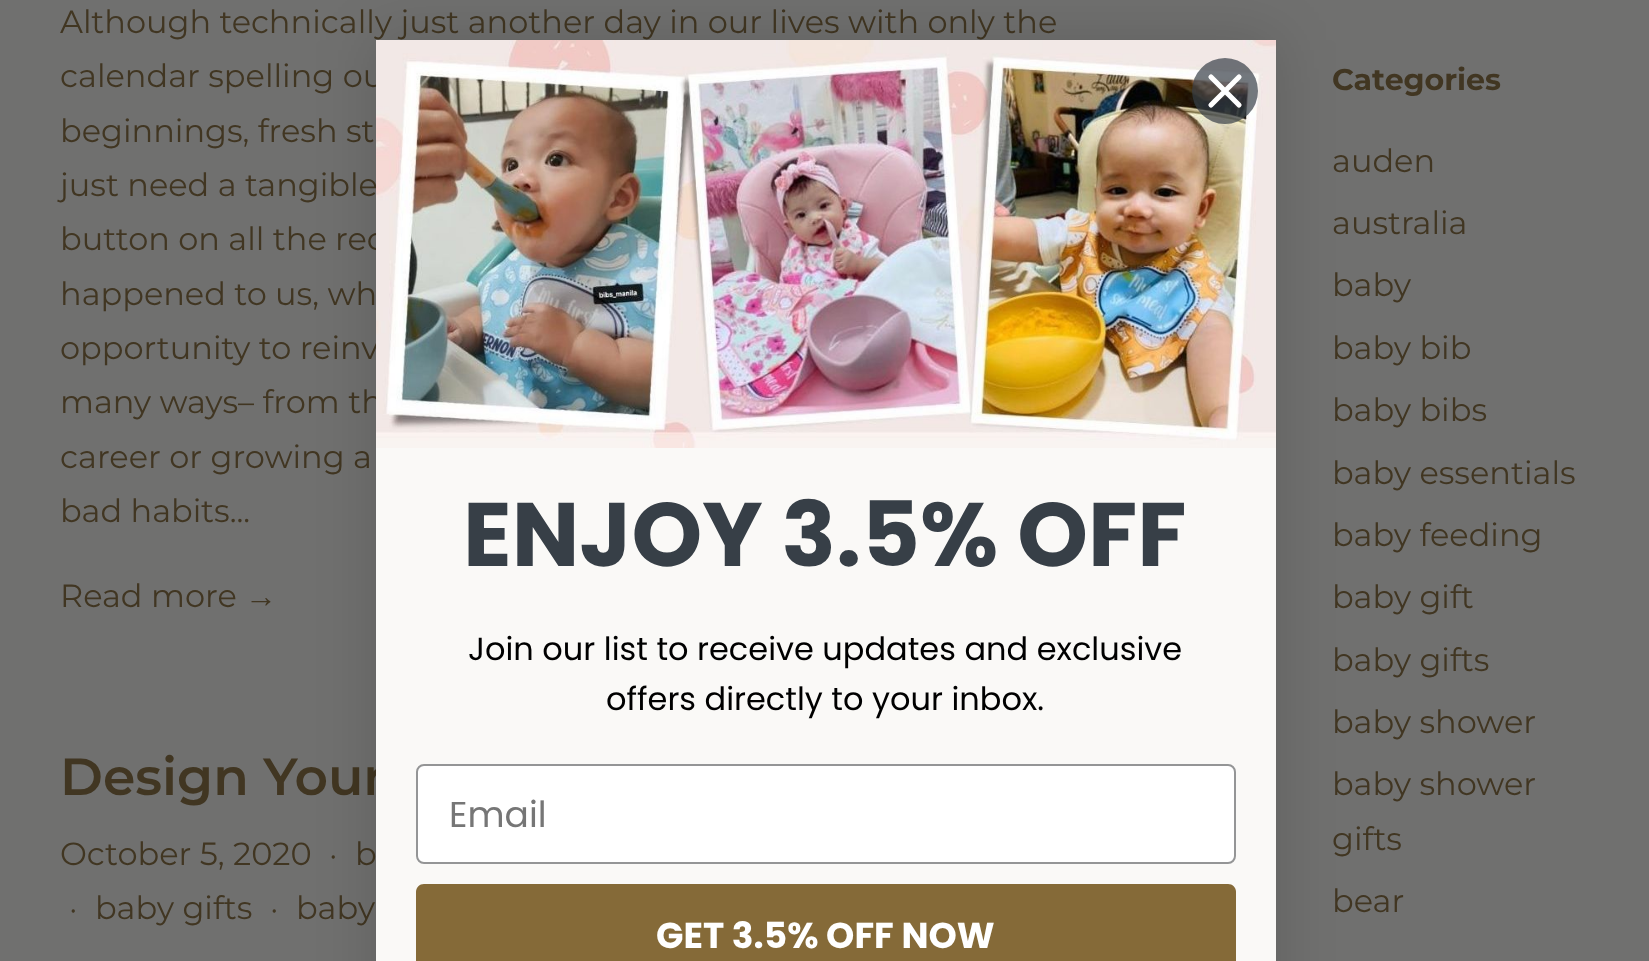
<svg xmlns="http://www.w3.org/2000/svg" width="1649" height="961">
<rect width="100%" height="100%" fill="#70706f"/>
<text x="60" y="33" style="font-family:Montserrat;font-size:32px;fill:#413622">Although technically just another day in our lives with only the</text>
<text x="60" y="87" style="font-family:Montserrat;font-size:32px;fill:#413622">calendar spelling ou</text>
<text x="60" y="142" style="font-family:Montserrat;font-size:32px;fill:#413622">beginnings, fresh st</text>
<text x="60" y="196" style="font-family:Montserrat;font-size:32px;fill:#413622">just need a tangible</text>
<text x="60" y="250" style="font-family:Montserrat;font-size:32px;fill:#413622">button on all the rec</text>
<text x="60" y="305" style="font-family:Montserrat;font-size:32px;fill:#413622">happened to us, wh</text>
<text x="60" y="359" style="font-family:Montserrat;font-size:32px;fill:#413622">opportunity to reinv</text>
<text x="60" y="413" style="font-family:Montserrat;font-size:32px;fill:#413622">many ways– from th</text>
<text x="60" y="468" style="font-family:Montserrat;font-size:32px;fill:#413622">career or growing a</text>
<text x="60" y="522" style="font-family:Montserrat;font-size:32px;fill:#413622">bad habits...</text>
<text x="60" y="607" style="font-family:Montserrat;font-size:32px;fill:#413622">Read more</text>
<text x="245" y="607" style="font-family:Liberation Sans;font-size:32px;fill:#413622">→</text>
<text x="60" y="795" style="font-family:Montserrat;font-size:52px;font-weight:600;fill:#413622">Design Your</text>
<text x="60" y="865" style="font-family:Montserrat;font-size:32px;fill:#413622">October 5, 2020</text>
<text x="330" y="863" style="font-family:Montserrat;font-size:22px;fill:#413622">•</text>
<text x="355" y="865" style="font-family:Montserrat;font-size:32px;fill:#413622">b</text>
<text x="70" y="917" style="font-family:Montserrat;font-size:22px;fill:#413622">•</text>
<text x="95" y="919" style="font-family:Montserrat;font-size:32px;fill:#413622">baby gifts</text>
<text x="271" y="917" style="font-family:Montserrat;font-size:22px;fill:#413622">•</text>
<text x="296" y="919" style="font-family:Montserrat;font-size:32px;fill:#413622">baby</text>
<text x="1332" y="90" style="font-family:Montserrat;font-size:30px;font-weight:bold;fill:#413622">Categories</text>
<text x="1332" y="172" style="font-family:Montserrat;font-size:32px;fill:#413622">auden</text>
<text x="1332" y="234" style="font-family:Montserrat;font-size:32px;fill:#413622">australia</text>
<text x="1332" y="296" style="font-family:Montserrat;font-size:32px;fill:#413622">baby</text>
<text x="1332" y="359" style="font-family:Montserrat;font-size:32px;fill:#413622">baby bib</text>
<text x="1332" y="421" style="font-family:Montserrat;font-size:32px;fill:#413622">baby bibs</text>
<text x="1332" y="484" style="font-family:Montserrat;font-size:32px;fill:#413622">baby essentials</text>
<text x="1332" y="546" style="font-family:Montserrat;font-size:32px;fill:#413622">baby feeding</text>
<text x="1332" y="608" style="font-family:Montserrat;font-size:32px;fill:#413622">baby gift</text>
<text x="1332" y="671" style="font-family:Montserrat;font-size:32px;fill:#413622">baby gifts</text>
<text x="1332" y="733" style="font-family:Montserrat;font-size:32px;fill:#413622">baby shower</text>
<text x="1332" y="795" style="font-family:Montserrat;font-size:32px;fill:#413622">baby shower</text>
<text x="1332" y="850" style="font-family:Montserrat;font-size:32px;fill:#413622">gifts</text>
<text x="1332" y="912" style="font-family:Montserrat;font-size:32px;fill:#413622">bear</text>
<rect x="376" y="40" width="900" height="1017" rx="6" fill="#00000026" filter="blur(30px)"/>
<image x="376" y="40" width="900" height="408" href="media/1.png"/>
<circle cx="1225" cy="91" r="33" fill="#373f47b3"/>
<path d="M1211 77l28 28m-28 0l28-28z" fill="none" stroke="#fff" stroke-width="5.2" stroke-linecap="round" stroke-linejoin="round"/>
<rect x="376" y="448" width="900" height="513" fill="#faf9f7"/>
<text x="463" y="566" style="font-family:Poppins;font-size:90px;font-weight:bold;fill:#373f47">ENJOY 3.5% OFF</text>
<text x="468" y="660" style="font-family:Poppins;font-size:32px;fill:#000">Join our list to receive updates and exclusive</text>
<text x="606" y="710" style="font-family:Poppins;font-size:32px;fill:#000">offers directly to your inbox.</text>
<rect x="417" y="765" width="818" height="98" rx="7" fill="#fff" stroke="#949596" stroke-width="2"/>
<text x="449" y="827" style="font-family:Poppins;font-size:36px;fill:#767676">Email</text>
<path d="M424 884h804c4.5 0 8 3.5 8 8v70h-820v-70c0-4.5 3.5-8 8-8z" fill="#856a38"/>
<text x="656" y="948" style="font-family:Poppins;font-size:36px;font-weight:bold;fill:#fff">GET 3.5% OFF NOW</text>
</svg>
